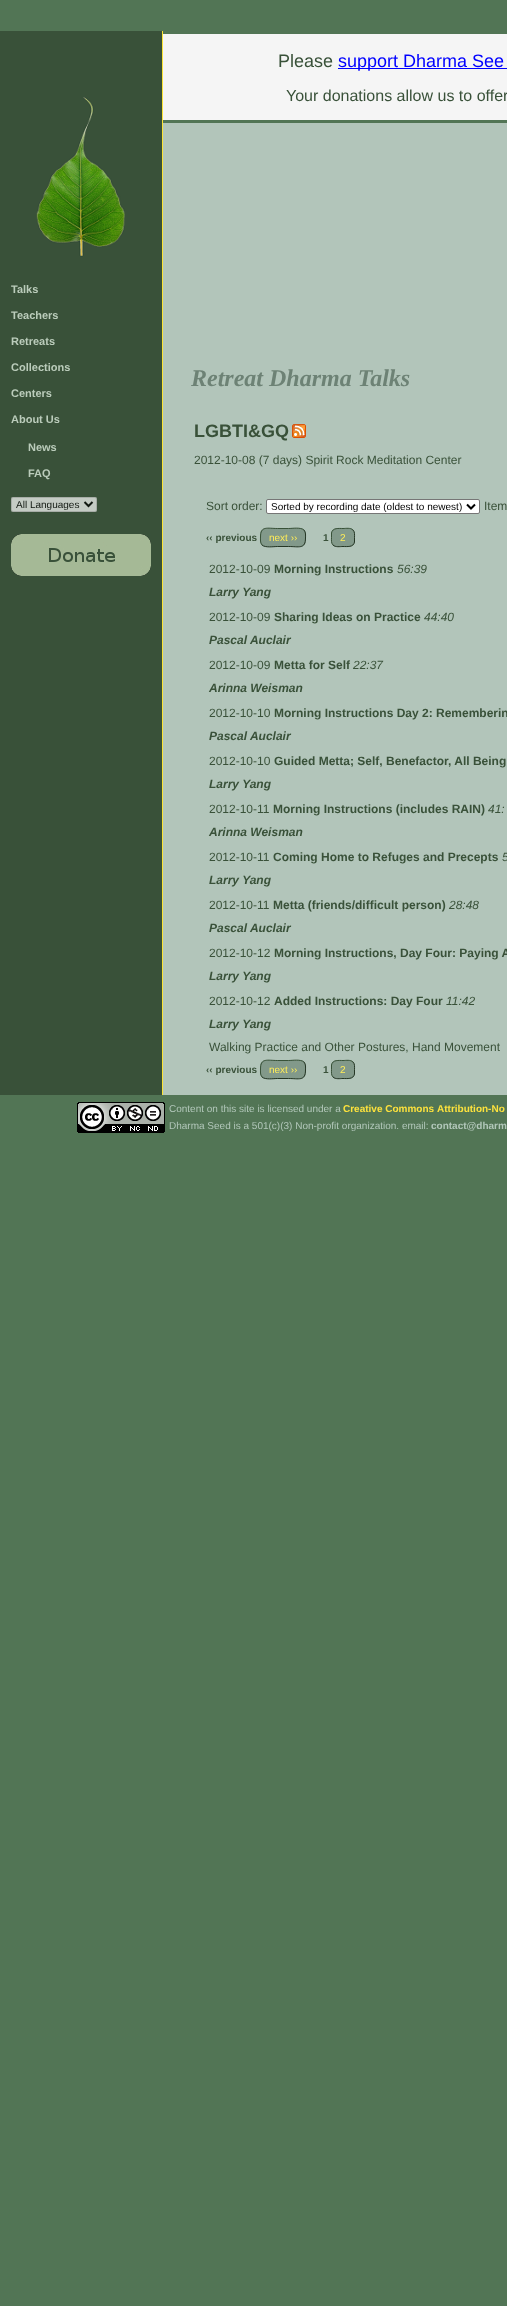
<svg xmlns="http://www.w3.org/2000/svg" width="507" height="2306">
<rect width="100%" height="100%" fill="#527555"/>
<rect y="31" width="162" height="1064" fill="#395139"/>
<image x="36" y="97" width="89" height="160" href="media/1.png"/>
<text x="11" y="293" style="font-family:Liberation Sans;font-size:11px;font-weight:bold;fill:#bcb">Talks</text>
<text x="11" y="319" style="font-family:Liberation Sans;font-size:11px;font-weight:bold;fill:#bcb">Teachers</text>
<text x="11" y="345" style="font-family:Liberation Sans;font-size:11px;font-weight:bold;fill:#bcb">Retreats</text>
<text x="11" y="371" style="font-family:Liberation Sans;font-size:11px;font-weight:bold;fill:#bcb">Collections</text>
<text x="11" y="397" style="font-family:Liberation Sans;font-size:11px;font-weight:bold;fill:#bcb">Centers</text>
<text x="11" y="423" style="font-family:Liberation Sans;font-size:11px;font-weight:bold;fill:#bcb">About Us</text>
<text x="28" y="451" style="font-family:Liberation Sans;font-size:11px;font-weight:bold;fill:#bcb">News</text>
<text x="28" y="477" style="font-family:Liberation Sans;font-size:11px;font-weight:bold;fill:#bcb">FAQ</text>
<rect x="11" y="497" width="86" height="15" rx="2" fill="#c4cbc4"/>
<rect x="11.5" y="497.5" width="85" height="14" rx="1.5" fill="none" stroke="#646b644d"/>
<path d="M84.5 502l4 4l4-4" fill="none" stroke="#111811" stroke-width="2"/>
<text x="16" y="508" style="font-family:Liberation Sans;font-size:10px;fill:#111811">All Languages</text>
<image x="11" y="534" width="140" height="42" href="media/2.png"/>
<rect x="162" y="31" width="1" height="1064" fill="#fbe436"/>
<rect x="163" y="123" width="344" height="972" fill="#b2c5ba"/>
<rect x="163" y="34" width="344" height="86" fill="#f5f5f5"/>
<text x="278" y="67" style="font-family:Liberation Sans;font-size:18px;fill:#395139">Please</text>
<rect x="338" y="68" width="169" height="1" fill="#00f"/>
<text x="338" y="67" style="font-family:Liberation Sans;font-size:18px;fill:#00f">support Dharma See</text>
<text x="286" y="101" style="font-family:Liberation Sans;font-size:16px;fill:#395139">Your donations allow us to offer</text>
<text x="191" y="386" style="font-family:Liberation Serif;font-size:24px;font-weight:bold;font-style:italic;fill:#6d8275">Retreat Dharma Talks</text>
<text x="194" y="437" style="font-family:Liberation Sans;font-size:18px;font-weight:bold;fill:#395139">LGBTI&amp;GQ</text>
<image x="292" y="424" width="14" height="14" href="media/3.png"/>
<text x="194" y="464" style="font-family:Liberation Sans;font-size:12px;fill:#395139">2012-10-08 (7 days) Spirit Rock Meditation Center</text>
<text x="206" y="510" style="font-family:Liberation Sans;font-size:12px;fill:#395139">Sort order:</text>
<rect x="266.5" y="499.5" width="213" height="14" rx="1.5" fill="#fff" stroke="#767676"/>
<path d="M467 504.5l4 4l4-4" fill="none" stroke="#000" stroke-width="2"/>
<text x="271" y="510" style="font-family:Liberation Sans;font-size:10px;fill:#000">Sorted by recording date (oldest to newest)</text>
<text x="484" y="510" style="font-family:Liberation Sans;font-size:12px;fill:#395139">Item</text>
<text x="206" y="541" style="font-family:Liberation Sans;font-size:10px;font-weight:bold;fill:#395139">‹‹ previous</text>
<rect x="260" y="528" width="46" height="19" rx="6" fill="#82998a"/>
<path d="M304 530c2 2.5 1.5 5.5 1.5 8c0 11.5-7 8.5-17 8.5h-11c-4 0-12 1.5-15.5-1.5" fill="none" stroke="#253625"/>
<path d="M262 545c-2-2.5-1.5-5.5-1.5-8c0-11.5 7-8.5 17-8.5h11c4 0 12-1.5 15.5 1.5" fill="none" stroke="#385138"/>
<text x="269" y="541" style="font-family:Liberation Sans;font-size:10px;fill:#ffed58">next ››</text>
<text x="323" y="541" style="font-family:Liberation Sans;font-size:10px;font-weight:bold;fill:#395139">1</text>
<rect x="331" y="528" width="24" height="19" rx="6" fill="#82998a"/>
<path d="M353 530c2 2 1.5 5 1.5 7.5v4.5c-1 5.5-7.5 4.5-11.5 4.5c-3 0-7.5 1-10-1.5" fill="none" stroke="#253625"/>
<path d="M333 545c-2-2-1.5-5-1.5-7.5v-4.5c1-5.5 7.5-4.5 11.5-4.5c3 0 7.5-1 10 1.5" fill="none" stroke="#385138"/>
<text x="340" y="541" style="font-family:Liberation Sans;font-size:10px;fill:#ffed58">2</text>
<text x="209" y="573" style="font-family:Liberation Sans;font-size:12px;fill:#395139">2012-10-09</text>
<text x="274" y="573" style="font-family:Liberation Sans;font-size:12px;font-weight:bold;fill:#395139">Morning Instructions</text>
<text x="397" y="573" style="font-family:Liberation Sans;font-size:12px;font-style:italic;fill:#395139">56:39</text>
<text x="209" y="596" style="font-family:Liberation Sans;font-size:12px;font-weight:bold;font-style:italic;fill:#395139">Larry Yang</text>
<text x="209" y="621" style="font-family:Liberation Sans;font-size:12px;fill:#395139">2012-10-09</text>
<text x="274" y="621" style="font-family:Liberation Sans;font-size:12px;font-weight:bold;fill:#395139">Sharing Ideas on Practice</text>
<text x="424" y="621" style="font-family:Liberation Sans;font-size:12px;font-style:italic;fill:#395139">44:40</text>
<text x="209" y="644" style="font-family:Liberation Sans;font-size:12px;font-weight:bold;font-style:italic;fill:#395139">Pascal Auclair</text>
<text x="209" y="669" style="font-family:Liberation Sans;font-size:12px;fill:#395139">2012-10-09</text>
<text x="274" y="669" style="font-family:Liberation Sans;font-size:12px;font-weight:bold;fill:#395139">Metta for Self</text>
<text x="353" y="669" style="font-family:Liberation Sans;font-size:12px;font-style:italic;fill:#395139">22:37</text>
<text x="209" y="692" style="font-family:Liberation Sans;font-size:12px;font-weight:bold;font-style:italic;fill:#395139">Arinna Weisman</text>
<text x="209" y="717" style="font-family:Liberation Sans;font-size:12px;fill:#395139">2012-10-10</text>
<text x="274" y="717" style="font-family:Liberation Sans;font-size:12px;font-weight:bold;fill:#395139">Morning Instructions Day 2: Rememberin</text>
<text x="209" y="740" style="font-family:Liberation Sans;font-size:12px;font-weight:bold;font-style:italic;fill:#395139">Pascal Auclair</text>
<text x="209" y="765" style="font-family:Liberation Sans;font-size:12px;fill:#395139">2012-10-10</text>
<text x="274" y="765" style="font-family:Liberation Sans;font-size:12px;font-weight:bold;fill:#395139">Guided Metta; Self, Benefactor, All Being</text>
<text x="209" y="788" style="font-family:Liberation Sans;font-size:12px;font-weight:bold;font-style:italic;fill:#395139">Larry Yang</text>
<text x="209" y="813" style="font-family:Liberation Sans;font-size:12px;fill:#395139">2012-10-11</text>
<text x="273" y="813" style="font-family:Liberation Sans;font-size:12px;font-weight:bold;fill:#395139">Morning Instructions (includes RAIN)</text>
<text x="488" y="813" style="font-family:Liberation Sans;font-size:12px;font-style:italic;fill:#395139">41:</text>
<text x="209" y="836" style="font-family:Liberation Sans;font-size:12px;font-weight:bold;font-style:italic;fill:#395139">Arinna Weisman</text>
<text x="209" y="861" style="font-family:Liberation Sans;font-size:12px;fill:#395139">2012-10-11</text>
<text x="273" y="861" style="font-family:Liberation Sans;font-size:12px;font-weight:bold;fill:#395139">Coming Home to Refuges and Precepts</text>
<text x="502" y="861" style="font-family:Liberation Sans;font-size:12px;font-style:italic;fill:#395139">5</text>
<text x="209" y="884" style="font-family:Liberation Sans;font-size:12px;font-weight:bold;font-style:italic;fill:#395139">Larry Yang</text>
<text x="209" y="909" style="font-family:Liberation Sans;font-size:12px;fill:#395139">2012-10-11</text>
<text x="273" y="909" style="font-family:Liberation Sans;font-size:12px;font-weight:bold;fill:#395139">Metta (friends/difficult person)</text>
<text x="449" y="909" style="font-family:Liberation Sans;font-size:12px;font-style:italic;fill:#395139">28:48</text>
<text x="209" y="932" style="font-family:Liberation Sans;font-size:12px;font-weight:bold;font-style:italic;fill:#395139">Pascal Auclair</text>
<text x="209" y="957" style="font-family:Liberation Sans;font-size:12px;fill:#395139">2012-10-12</text>
<text x="274" y="957" style="font-family:Liberation Sans;font-size:12px;font-weight:bold;fill:#395139">Morning Instructions, Day Four: Paying A</text>
<text x="209" y="980" style="font-family:Liberation Sans;font-size:12px;font-weight:bold;font-style:italic;fill:#395139">Larry Yang</text>
<text x="209" y="1005" style="font-family:Liberation Sans;font-size:12px;fill:#395139">2012-10-12</text>
<text x="274" y="1005" style="font-family:Liberation Sans;font-size:12px;font-weight:bold;fill:#395139">Added Instructions: Day Four</text>
<text x="446" y="1005" style="font-family:Liberation Sans;font-size:12px;font-style:italic;fill:#395139">11:42</text>
<text x="209" y="1028" style="font-family:Liberation Sans;font-size:12px;font-weight:bold;font-style:italic;fill:#395139">Larry Yang</text>
<text x="209" y="1051" style="font-family:Liberation Sans;font-size:12px;fill:#395139">Walking Practice and Other Postures, Hand Movement</text>
<text x="206" y="1073" style="font-family:Liberation Sans;font-size:10px;font-weight:bold;fill:#395139">‹‹ previous</text>
<rect x="260" y="1060" width="46" height="19" rx="6" fill="#82998a"/>
<path d="M304 1062c2 2.5 1.5 5.5 1.5 8c0 11.5-7 8.5-17 8.5h-11c-4 0-12 1.5-15.5-1.5" fill="none" stroke="#253625"/>
<path d="M262 1077c-2-2.5-1.5-5.5-1.5-8c0-11.5 7-8.5 17-8.5h11c4 0 12-1.5 15.5 1.5" fill="none" stroke="#385138"/>
<text x="269" y="1073" style="font-family:Liberation Sans;font-size:10px;fill:#ffed58">next ››</text>
<text x="323" y="1073" style="font-family:Liberation Sans;font-size:10px;font-weight:bold;fill:#395139">1</text>
<rect x="331" y="1060" width="24" height="19" rx="6" fill="#82998a"/>
<path d="M353 1062c2 2 1.5 5 1.5 7.5v4.5c-1 5.5-7.5 4.5-11.5 4.5c-3 0-7.5 1-10-1.5" fill="none" stroke="#253625"/>
<path d="M333 1077c-2-2-1.5-5-1.5-7.5v-4.5c1-5.5 7.5-4.5 11.5-4.5c3 0 7.5-1 10 1.5" fill="none" stroke="#385138"/>
<text x="340" y="1073" style="font-family:Liberation Sans;font-size:10px;fill:#ffed58">2</text>
<image x="77" y="1102" width="88" height="31" href="media/4.png"/>
<text x="169" y="1112" style="font-family:Liberation Sans;font-size:10px;fill:#b2c7ba">Content on this site is licensed under a</text>
<text x="343" y="1112" style="font-family:Liberation Sans;font-size:10px;font-weight:bold;fill:#fde23d">Creative Commons</text>
<text x="437" y="1112" style="font-family:Liberation Sans;font-size:10px;font-weight:bold;fill:#fde23d">Attribution-No</text>
<text x="169" y="1129" style="font-family:Liberation Sans;font-size:10px;fill:#b2c7ba">Dharma Seed is a 501(c)(3) Non-profit organization. email:</text>
<text x="431" y="1129" style="font-family:Liberation Sans;font-size:10px;font-weight:bold;fill:#b2c7ba">contact@dharm</text>
</svg>
